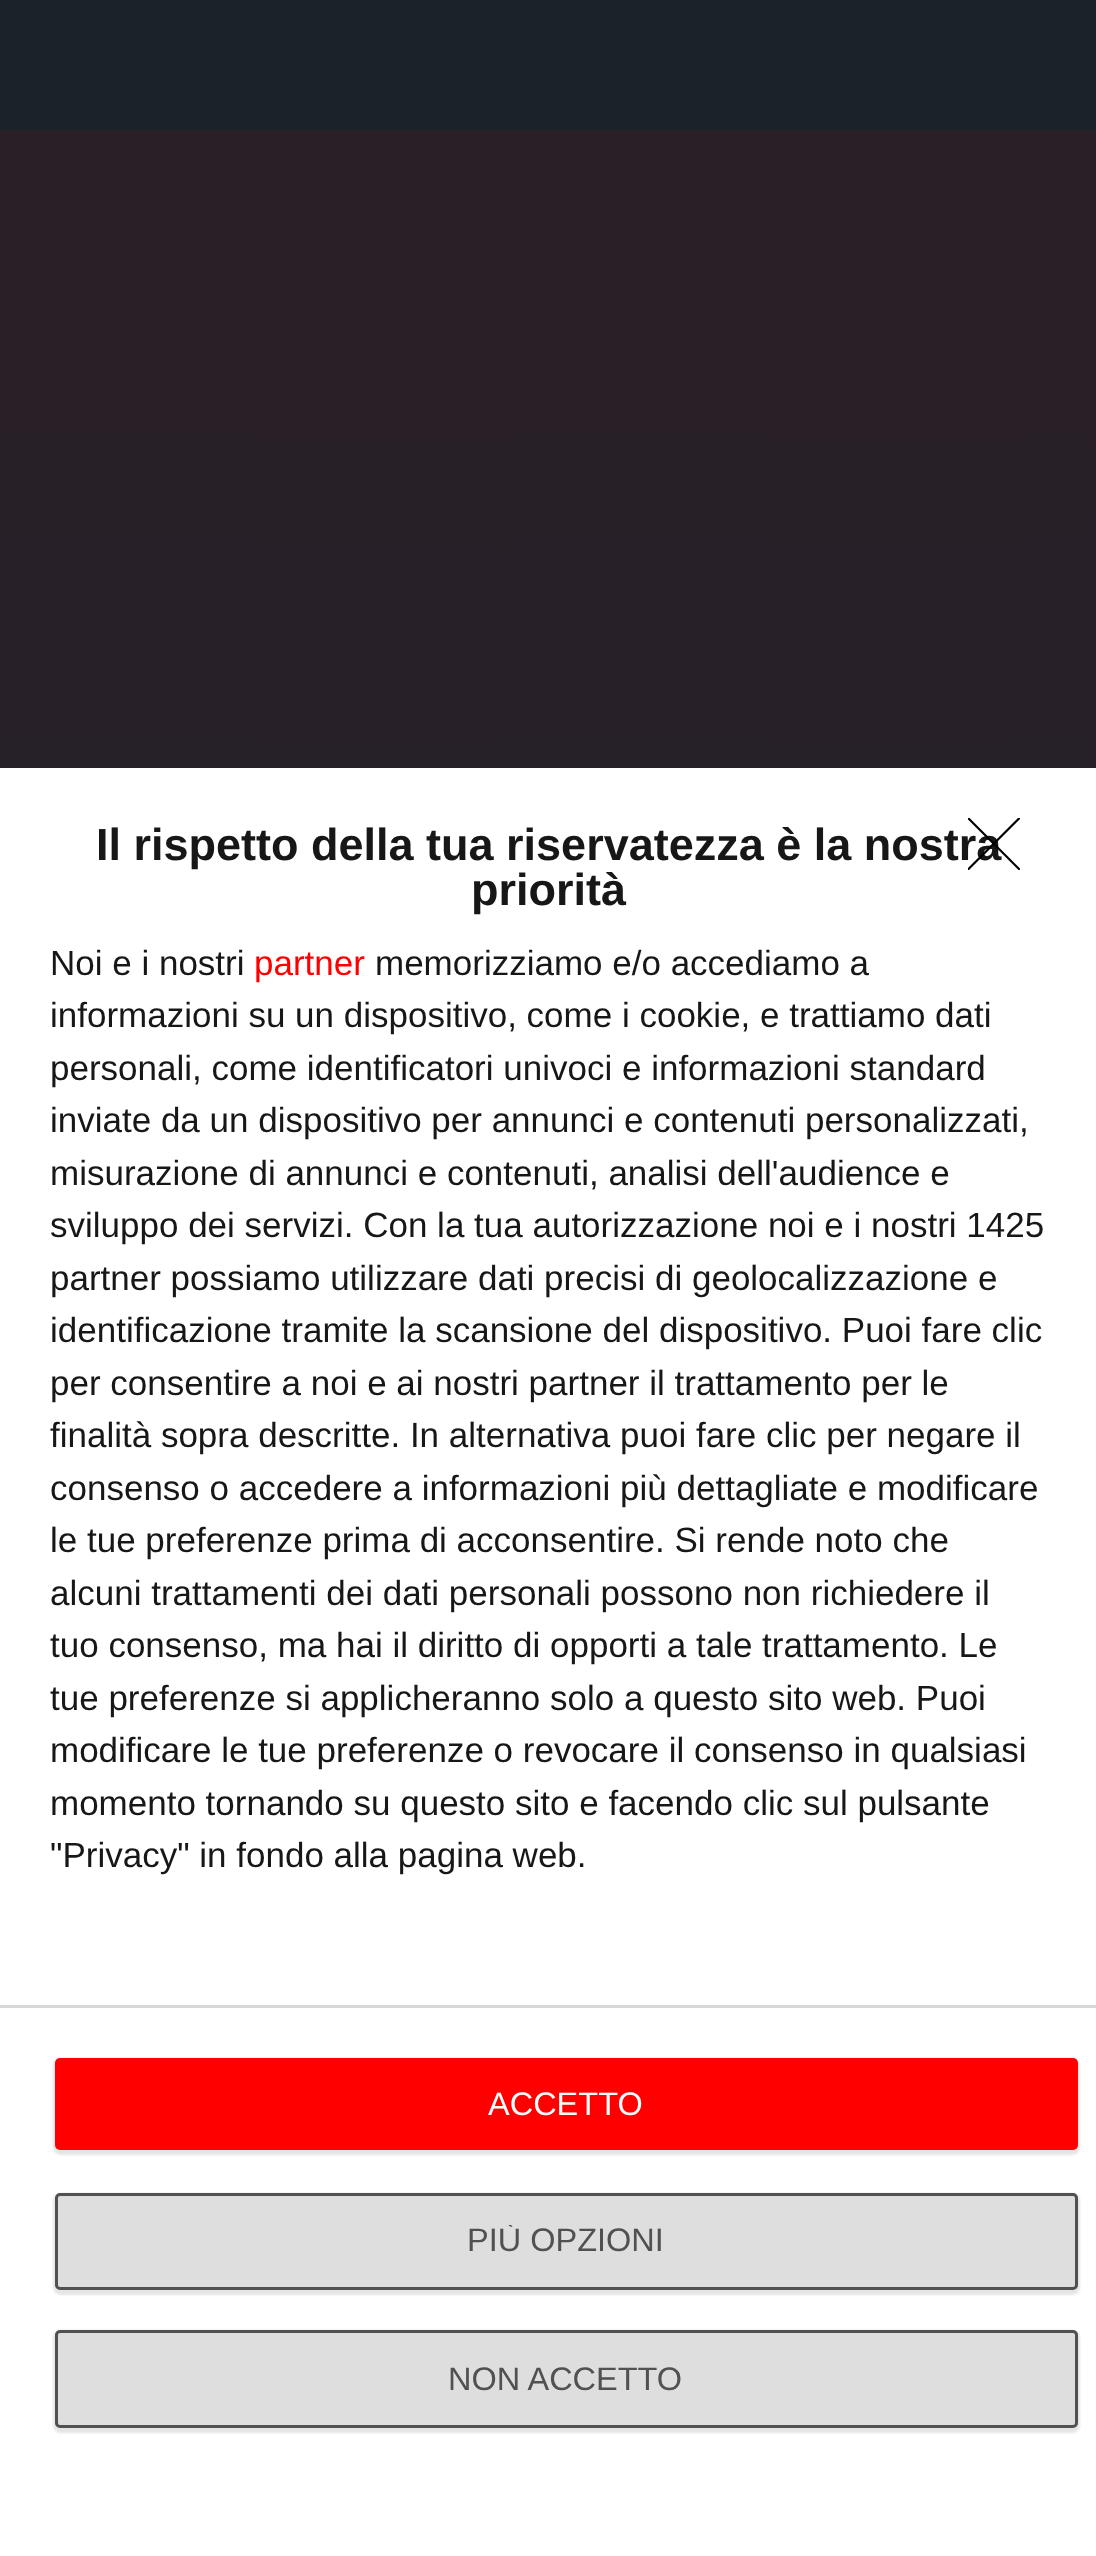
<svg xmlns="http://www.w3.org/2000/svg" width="1096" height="2556">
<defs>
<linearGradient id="g1" gradientUnits="userSpaceOnUse" x1="549" y1="0" x2="549" y2="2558"><stop offset="0" stop-color="#2b1f27"/><stop offset="1" stop-color="#1c222a"/></linearGradient>
<clipPath id="clip1"><rect x="968" y="818" width="52" height="52"/></clipPath>
<clipPath id="clip2"><rect x="468" y="2225" width="195" height="33"/></clipPath>
</defs>
<rect width="100%" height="100%" fill="#fff"/>
<rect y="130" width="1096" height="638" fill="url(#g1)"/>
<rect width="1096" height="130" fill="#1c222a"/>
<text x="96" y="860" style="font-family:Liberation Sans;font-size:45px;font-weight:bold;fill:#171717">Il rispetto della tua riservatezza è la nostra</text>
<g clip-path="url(#clip1)">
<path d="M968.5 818.5l50.5 50.5m0-50.5l-50.5 50.5" fill="none" stroke="#000" stroke-width="2.2" stroke-linecap="round" stroke-linejoin="round"/>
</g>
<text x="471" y="905" style="font-family:Liberation Sans;font-size:45px;font-weight:bold;fill:#171717">priorità</text>
<text x="50" y="975" style="font-family:Liberation Sans;font-size:35px;fill:#171717">Noi e i nostri</text>
<text x="254" y="975" style="font-family:Liberation Sans;font-size:35px;fill:#f00">partner</text>
<text x="375" y="975" style="font-family:Liberation Sans;font-size:35px;fill:#171717">memorizziamo e/o accediamo a</text>
<text x="50" y="1027" style="font-family:Liberation Sans;font-size:35px;fill:#171717">informazioni su un dispositivo, come i cookie, e trattiamo dati</text>
<text x="50" y="1080" style="font-family:Liberation Sans;font-size:35px;fill:#171717">personali, come identificatori univoci e informazioni standard</text>
<text x="50" y="1132" style="font-family:Liberation Sans;font-size:35px;fill:#171717">inviate da un dispositivo per annunci e contenuti personalizzati,</text>
<text x="50" y="1185" style="font-family:Liberation Sans;font-size:35px;fill:#171717">misurazione di annunci e contenuti, analisi dell'audience e</text>
<text x="50" y="1237" style="font-family:Liberation Sans;font-size:35px;fill:#171717">sviluppo dei servizi. Con la tua autorizzazione noi e i nostri 1425</text>
<text x="50" y="1290" style="font-family:Liberation Sans;font-size:35px;fill:#171717">partner possiamo utilizzare dati precisi di geolocalizzazione e</text>
<text x="50" y="1342" style="font-family:Liberation Sans;font-size:35px;fill:#171717">identificazione tramite la scansione del dispositivo. Puoi fare clic</text>
<text x="50" y="1395" style="font-family:Liberation Sans;font-size:35px;fill:#171717">per consentire a noi e ai nostri partner il trattamento per le</text>
<text x="50" y="1447" style="font-family:Liberation Sans;font-size:35px;fill:#171717">finalità sopra descritte. In alternativa puoi fare clic per negare il</text>
<text x="50" y="1500" style="font-family:Liberation Sans;font-size:35px;fill:#171717">consenso o accedere a informazioni più dettagliate e modificare</text>
<text x="50" y="1552" style="font-family:Liberation Sans;font-size:35px;fill:#171717">le tue preferenze prima di acconsentire. Si rende noto che</text>
<text x="50" y="1605" style="font-family:Liberation Sans;font-size:35px;fill:#171717">alcuni trattamenti dei dati personali possono non richiedere il</text>
<text x="50" y="1657" style="font-family:Liberation Sans;font-size:35px;fill:#171717">tuo consenso, ma hai il diritto di opporti a tale trattamento. Le</text>
<text x="50" y="1710" style="font-family:Liberation Sans;font-size:35px;fill:#171717">tue preferenze si applicheranno solo a questo sito web. Puoi</text>
<text x="50" y="1762" style="font-family:Liberation Sans;font-size:35px;fill:#171717">modificare le tue preferenze o revocare il consenso in qualsiasi</text>
<text x="50" y="1815" style="font-family:Liberation Sans;font-size:35px;fill:#171717">momento tornando su questo sito e facendo clic sul pulsante</text>
<text x="50" y="1867" style="font-family:Liberation Sans;font-size:35px;fill:#171717">"Privacy" in fondo alla pagina web.</text>
<rect y="2005" width="1096" height="3" fill="#d8d8d8"/>
<rect x="53" y="2058" width="1027" height="97" rx="8" fill="#0000001a" filter="blur(1px)"/>
<rect x="55" y="2058" width="1023" height="92" rx="5" fill="#f00"/>
<text x="488" y="2115" style="font-family:Liberation Sans;font-size:32.5px;fill:#fff">ACCETTO</text>
<rect x="53" y="2193" width="1027" height="102" rx="8" fill="#0000001a" filter="blur(1px)"/>
<rect x="56.5" y="2194.5" width="1020" height="94" rx="3.5" fill="#dedede" stroke="#515151" stroke-width="3"/>
<g clip-path="url(#clip2)">
<text x="467" y="2251" style="font-family:Liberation Sans;font-size:32.5px;fill:#515151">PIÙ OPZIONI</text>
</g>
<rect x="53" y="2330" width="1027" height="103" rx="8" fill="#0000001a" filter="blur(1px)"/>
<rect x="56.5" y="2331.5" width="1020" height="95" rx="3.5" fill="#dedede" stroke="#515151" stroke-width="3"/>
<text x="448" y="2390" style="font-family:Liberation Sans;font-size:32.5px;fill:#515151">NON ACCETTO</text>
</svg>
